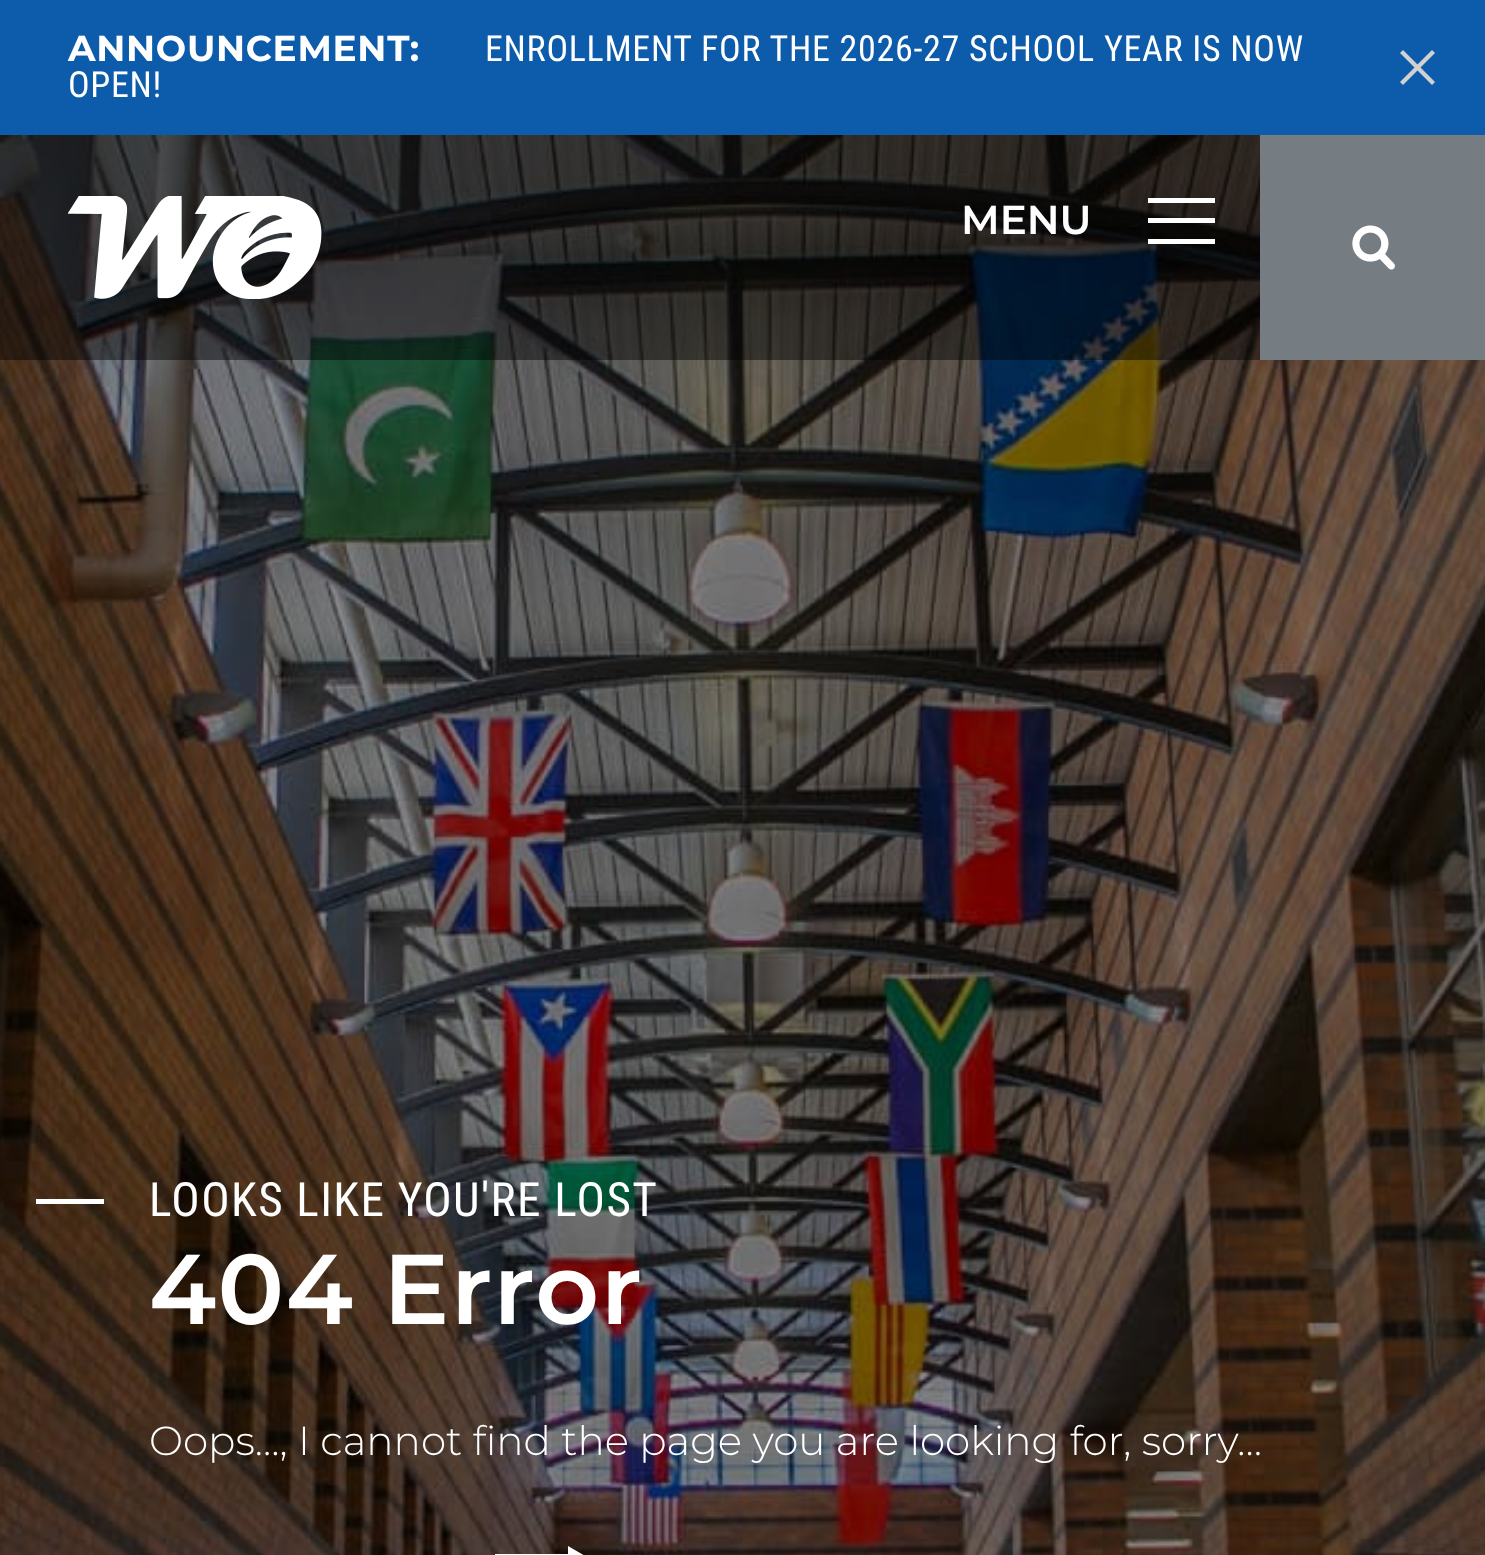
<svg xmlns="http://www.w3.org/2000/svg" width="1485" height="1555">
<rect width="100%" height="100%" fill="#0d5bab"/>
<text x="68" y="61" style="font-family:Montserrat;font-size:36px;font-weight:bold;letter-spacing:0.7px;fill:#fff">ANNOUNCEMENT:</text>
<text x="485" y="61" style="font-family:Roboto Condensed;font-size:36px;letter-spacing:0.7px;fill:#fff">ENROLLMENT FOR THE 2026-27 SCHOOL YEAR IS NOW</text>
<text x="68" y="97" style="font-family:Roboto Condensed;font-size:36px;letter-spacing:0.7px;fill:#fff">OPEN!</text>
<path d="M1403 50l32 32l-3 3l-32-32z" fill="#d1d1d1"/>
<path d="M1400 82l32-32l3 3l-32 32z" fill="#d1d1d1"/>
<image x="0" y="135" width="1485" height="1420" href="media/3.png"/>
<rect y="135" width="1260" height="225" fill="#00000073"/>
<image x="68" y="196" width="254" height="103" href="media/1.png"/>
<text x="961" y="234" style="font-family:Montserrat;font-size:40.5px;font-weight:600;fill:#fff">MENU</text>
<rect x="1148" y="198" width="67" height="5" fill="#fff"/>
<rect x="1148" y="218" width="67" height="5" fill="#fff"/>
<rect x="1148" y="239" width="67" height="5" fill="#fff"/>
<rect x="1260" y="135" width="225" height="225" fill="#757c82"/>
<image x="1352" y="225" width="43" height="45" href="media/2.png"/>
<rect x="36" y="1199" width="68" height="5" fill="#fff"/>
<text x="149" y="1216" style="font-family:Roboto Condensed;font-size:47.25px;letter-spacing:1.4px;fill:#fff">LOOKS LIKE YOU'RE LOST</text>
<text x="149" y="1324" style="font-family:Montserrat;font-size:99px;font-weight:600;letter-spacing:1.4px;fill:#fff">404 Error</text>
<text x="149" y="1455" style="font-family:Montserrat;font-size:40.5px;font-weight:300;fill:#fff">Oops…, I cannot find the page you are looking for, sorry…</text>
<path d="M495 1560h73v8l19-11l-19-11v8h-73z" fill="#fff"/>
</svg>
